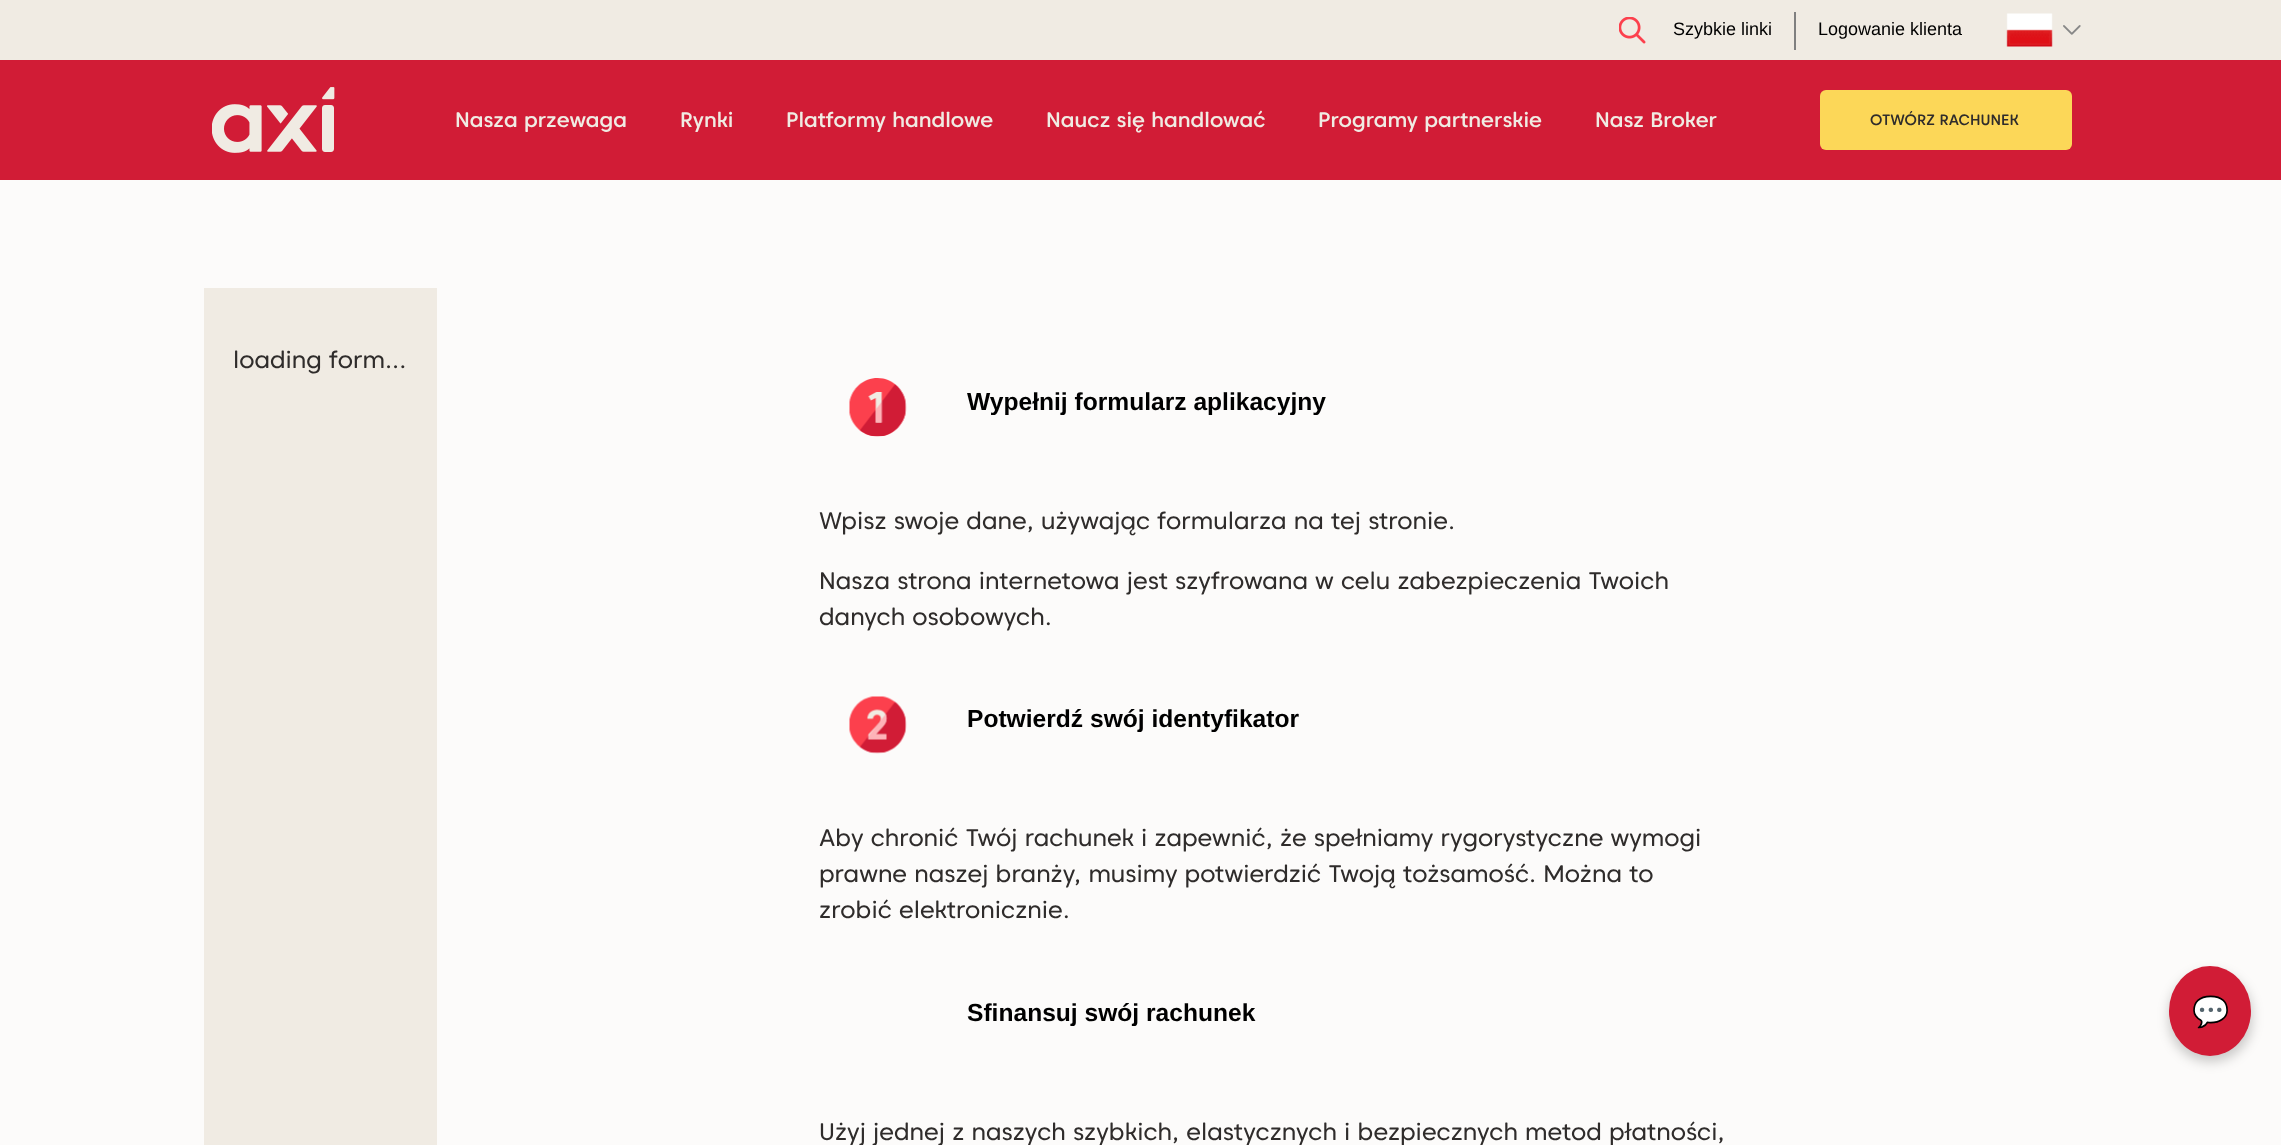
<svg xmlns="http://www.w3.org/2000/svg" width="2281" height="1145">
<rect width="100%" height="100%" fill="#fcfbfa"/>
<rect width="2281" height="60" fill="#f0ebe3"/>
<image x="1619" y="17" width="27" height="27" href="media/1.png"/>
<text x="1673" y="35" style="font-family:Liberation Sans;font-size:18px;fill:#000">Szybkie linki</text>
<rect x="1794" y="12" width="2" height="38" fill="#808080"/>
<text x="1818" y="35" style="font-family:Liberation Sans;font-size:18px;fill:#000">Logowanie klienta</text>
<image x="2063" y="25" width="18" height="10" href="media/2.png"/>
<image x="2006" y="13" width="47" height="34" href="media/3.png"/>
<rect y="60" width="2281" height="120" fill="#d11c36"/>
<image x="212" y="87" width="123" height="66" href="media/4.png"/>
<text x="455" y="127" style="font-family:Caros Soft;font-size:21px;font-weight:500;fill:#f0ebe3">Nasza przewaga</text>
<text x="680" y="127" style="font-family:Caros Soft;font-size:21px;font-weight:500;fill:#f0ebe3">Rynki</text>
<text x="786" y="127" style="font-family:Caros Soft;font-size:21px;font-weight:500;fill:#f0ebe3">Platformy handlowe</text>
<text x="1046" y="127" style="font-family:Caros Soft;font-size:21px;font-weight:500;fill:#f0ebe3">Naucz się handlować</text>
<text x="1318" y="127" style="font-family:Caros Soft;font-size:21px;font-weight:500;fill:#f0ebe3">Programy partnerskie</text>
<text x="1595" y="127" style="font-family:Caros Soft;font-size:21px;font-weight:500;fill:#f0ebe3">Nasz Broker</text>
<rect x="1820" y="90" width="252" height="60" rx="6" fill="#fcd758"/>
<text x="1870" y="125" style="font-family:Caros Soft;font-size:15px;font-weight:500;fill:#2f2c2b">OTWÓRZ RACHUNEK</text>
<rect x="204" y="288" width="233" height="857" fill="#f0ebe3"/>
<text x="233" y="368" style="font-family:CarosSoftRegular;font-size:24px;fill:#2f2c2b">loading form...</text>
<image x="849" y="378" width="58" height="59" href="media/5.png"/>
<text x="967" y="410" style="font-family:Liberation Sans;font-size:24.6px;font-weight:bold;fill:#000">Wypełnij formularz aplikacyjny</text>
<text x="819" y="529" style="font-family:CarosSoftRegular;font-size:24px;fill:#2f2c2b">Wpisz swoje dane, używając formularza na tej stronie.</text>
<text x="819" y="589" style="font-family:CarosSoftRegular;font-size:24px;fill:#2f2c2b">Nasza strona internetowa jest szyfrowana w celu zabezpieczenia Twoich</text>
<text x="819" y="625" style="font-family:CarosSoftRegular;font-size:24px;fill:#2f2c2b">danych osobowych.</text>
<image x="849" y="696" width="58" height="58" href="media/6.png"/>
<text x="967" y="727" style="font-family:Liberation Sans;font-size:24.6px;font-weight:bold;fill:#000">Potwierdź swój identyfikator</text>
<text x="819" y="846" style="font-family:CarosSoftRegular;font-size:24px;fill:#2f2c2b">Aby chronić Twój rachunek i zapewnić, że spełniamy rygorystyczne wymogi</text>
<text x="819" y="882" style="font-family:CarosSoftRegular;font-size:24px;fill:#2f2c2b">prawne naszej branży, musimy potwierdzić Twoją tożsamość. Można to</text>
<text x="819" y="918" style="font-family:CarosSoftRegular;font-size:24px;fill:#2f2c2b">zrobić elektronicznie.</text>
<text x="967" y="1021" style="font-family:Liberation Sans;font-size:24.6px;font-weight:bold;fill:#000">Sfinansuj swój rachunek</text>
<text x="819" y="1140" style="font-family:CarosSoftRegular;font-size:24px;fill:#2f2c2b">Użyj jednej z naszych szybkich, elastycznych i bezpiecznych metod płatności,</text>
<rect x="2169" y="972" width="83" height="90" rx="41.5" fill="#00000033" filter="blur(6px)"/>
<ellipse cx="2210" cy="1011" rx="41" ry="45" fill="#d11c36"/>
<text x="2192" y="1022" style="font-family:Noto Color Emoji;font-size:30px;fill:#fff">💬</text>
</svg>
